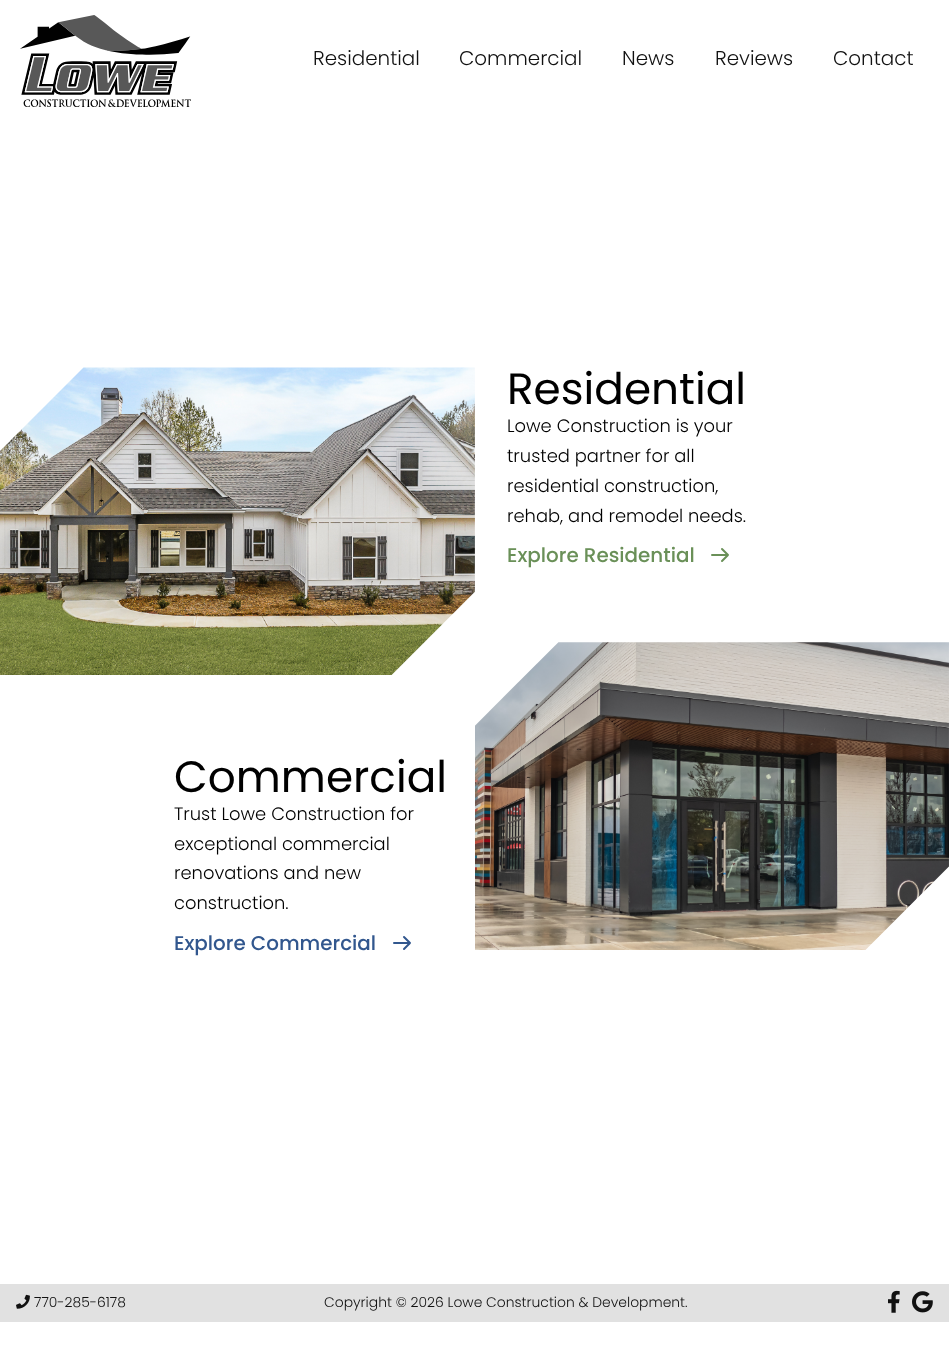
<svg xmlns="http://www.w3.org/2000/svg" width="949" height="1352">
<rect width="100%" height="100%" fill="#fff"/>
<image x="20" y="15" width="171" height="92" href="media/1.png"/>
<text x="313" y="65" style="font-family:Poppins;font-size:19.9px;font-weight:300;fill:#111">Residential</text>
<text x="459" y="65" style="font-family:Poppins;font-size:19.9px;font-weight:300;fill:#111">Commercial</text>
<text x="622" y="65" style="font-family:Poppins;font-size:19.9px;font-weight:300;fill:#111">News</text>
<text x="715" y="65" style="font-family:Poppins;font-size:19.9px;font-weight:300;fill:#111">Reviews</text>
<text x="833" y="65" style="font-family:Poppins;font-size:19.9px;font-weight:300;fill:#111">Contact</text>
<text x="507" y="404" style="font-family:Poppins;font-size:43.75px;fill:#000">Residential</text>
<text x="507" y="432" style="font-family:Poppins;font-size:17.9px;font-weight:300;fill:#000">Lowe Construction is your</text>
<text x="507" y="462" style="font-family:Poppins;font-size:17.9px;font-weight:300;fill:#000">trusted partner for all</text>
<text x="507" y="492" style="font-family:Poppins;font-size:17.9px;font-weight:300;fill:#000">residential construction,</text>
<text x="507" y="522" style="font-family:Poppins;font-size:17.9px;font-weight:300;fill:#000">rehab, and remodel needs.</text>
<text x="507" y="562" style="font-family:Poppins;font-size:19.9px;font-weight:500;fill:#6a9058">Explore Residential</text>
<path d="M712 555h16m-6-6l6 6l-6 6" fill="none" stroke="#6a9058" stroke-width="2" stroke-linecap="round" stroke-linejoin="round"/>
<image x="475" y="642" width="474" height="308" href="media/2.png"/>
<image x="0" y="367" width="475" height="308" href="media/3.png"/>
<text x="174" y="792" style="font-family:Poppins;font-size:43.75px;fill:#000">Commercial</text>
<text x="174" y="820" style="font-family:Poppins;font-size:17.9px;font-weight:300;fill:#000">Trust Lowe Construction for</text>
<text x="174" y="850" style="font-family:Poppins;font-size:17.9px;font-weight:300;fill:#000">exceptional commercial</text>
<text x="174" y="879" style="font-family:Poppins;font-size:17.9px;font-weight:300;fill:#000">renovations and new</text>
<text x="174" y="909" style="font-family:Poppins;font-size:17.9px;font-weight:300;fill:#000">construction.</text>
<text x="174" y="950" style="font-family:Poppins;font-size:19.9px;font-weight:500;fill:#32578e">Explore Commercial</text>
<path d="M394 943h16m-6-6l6 6l-6 6" fill="none" stroke="#32578e" stroke-width="2" stroke-linecap="round" stroke-linejoin="round"/>
<rect y="1284" width="949" height="38" fill="#e1e1e1"/>
<image x="16" y="1294" width="14" height="15" href="media/4.png"/>
<text x="34" y="1307" style="font-family:Poppins;font-size:13.9px;font-weight:300;fill:#111">770-285-6178</text>
<text x="324" y="1307" style="font-family:Poppins;font-size:13.9px;font-weight:300;fill:#111">Copyright © 2026 Lowe Construction &amp; Development.</text>
<image x="888" y="1290" width="12" height="23" href="media/5.png"/>
<image x="912" y="1291" width="21" height="22" href="media/6.png"/>
</svg>
